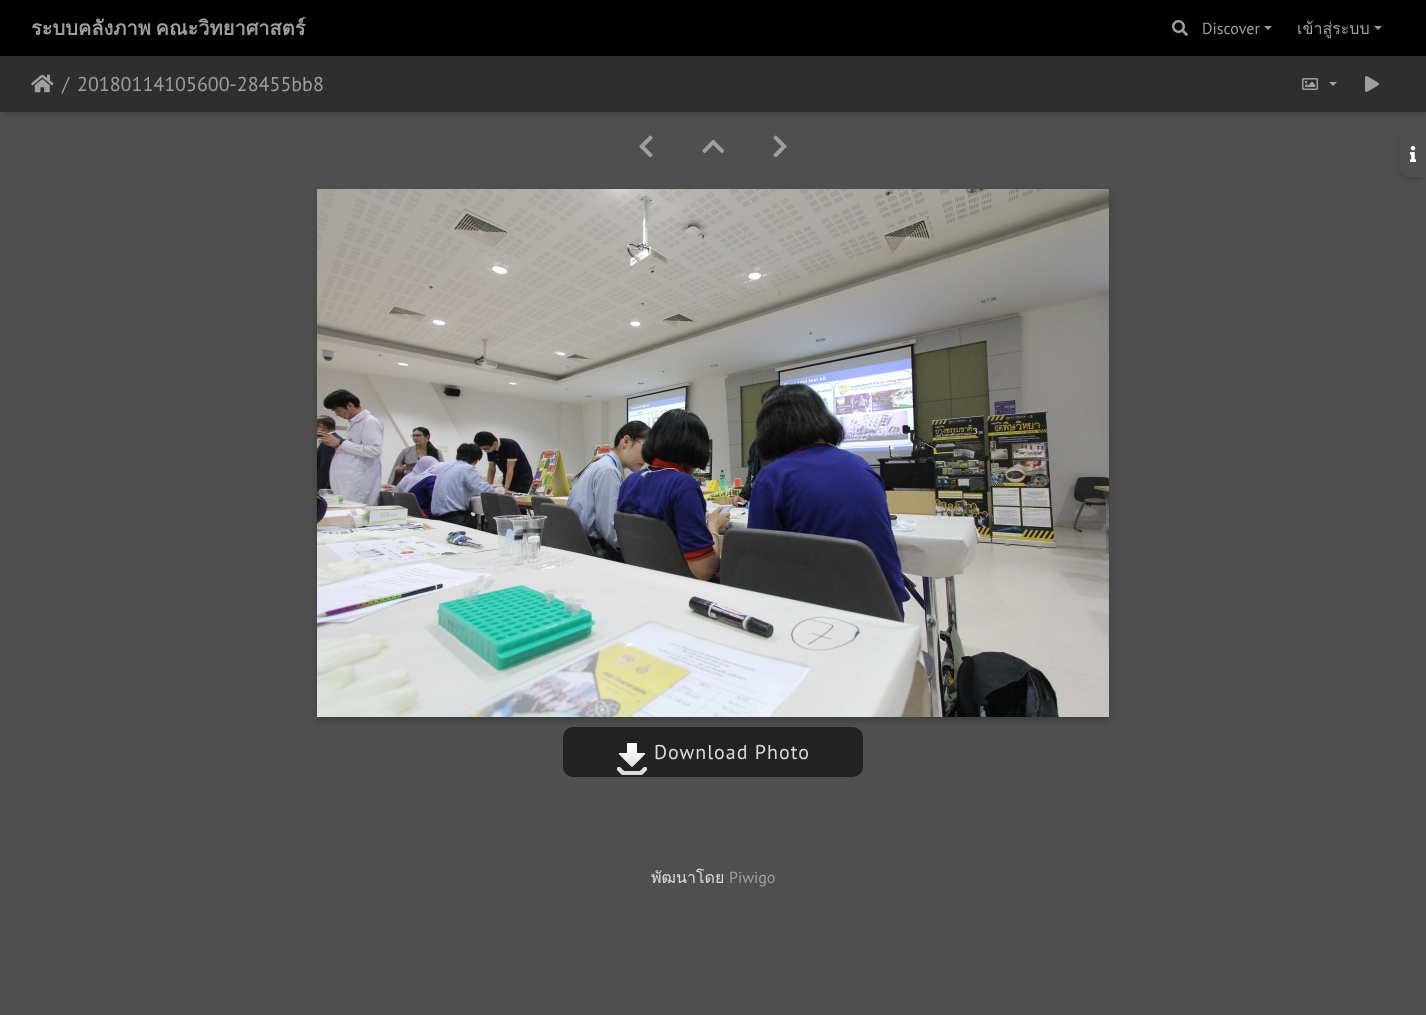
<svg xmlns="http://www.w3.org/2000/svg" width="1426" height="1015">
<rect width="100%" height="100%" fill="#4f4f4f"/>
<rect x="1" y="60" width="1424" height="54" fill="#00000033" filter="blur(2.5px)"/>
<rect width="1426" height="56" fill="#000"/>
<text x="31" y="35" word-spacing="-2" style="font-family:Loma;font-size:20px;font-weight:bold;fill:#9e9e9e">ระบบคลังภาพ คณะวิทยาศาสตร์</text>
<image x="1172" y="20" width="16" height="16" href="media/1.png"/>
<text x="1202" y="34" style="font-family:PT Sans;font-size:16px;fill:#9e9e9e">Discover</text>
<path d="M1264 26h8l-4 4z" fill="#9e9e9e"/>
<text x="1297" y="34" style="font-family:Loma;font-size:16px;fill:#9e9e9e">เข้าสู่ระบบ</text>
<path d="M1374 26h8l-4 4z" fill="#9e9e9e"/>
<rect y="56" width="1426" height="56" fill="#2e2e2e"/>
<image x="31" y="74" width="23" height="19" href="media/2.png"/>
<text x="62" y="91" style="font-family:PT Sans;font-size:20px;fill:#9e9e9e">/</text>
<text x="77" y="91" style="font-family:PT Sans;font-size:20px;fill:#9e9e9e">20180114105600-28455bb8</text>
<image x="1302" y="78" width="16" height="12" href="media/3.png"/>
<path d="M1329 82h8l-4 4z" fill="#9e9e9e"/>
<image x="1365" y="76" width="14" height="16" href="media/4.png"/>
<image x="639" y="135" width="14" height="23" href="media/5.png"/>
<image x="702" y="139" width="22" height="14" href="media/6.png"/>
<image x="773" y="135" width="14" height="23" href="media/7.png"/>
<rect x="1400" y="135" width="25" height="44" rx="9" fill="#00000033" filter="blur(2.5px)"/>
<path d="M1409 131h17v46h-17c-5.5 0-10-4.5-10-10v-26c0-5.5 4.5-10 10-10z" fill="#4f4f4f"/>
<path d="M1409 131h17v46h-17c-6 0-10-4-10-10v-26c0-6 4-10 10-10zm0 1h17v44h-17c-5 0-9-4-9-9v-26c0-5 4-9 9-9z" fill="#4f4f4f" fill-rule="evenodd"/>
<image x="1410" y="146" width="6" height="16" href="media/8.png"/>
<rect x="563" y="727" width="300" height="50" rx="10" fill="#222"/>
<rect x="317" y="192" width="792" height="528" fill="#0000003b" filter="blur(3px)"/>
<image x="317" y="189" width="792" height="528" href="media/9.png"/>
<image x="617" y="743" width="30" height="32" href="media/10.png"/>
<text x="654" y="759" style="font-family:PT Sans;font-size:20px;letter-spacing:1px;fill:#dbdbdb">Download Photo</text>
<text x="651" y="883" style="font-family:Loma;font-size:16px;fill:#dbdbdb">พัฒนาโดย</text>
<text x="729" y="883" style="font-family:PT Sans;font-size:16px;fill:#9e9e9e">Piwigo</text>
</svg>
